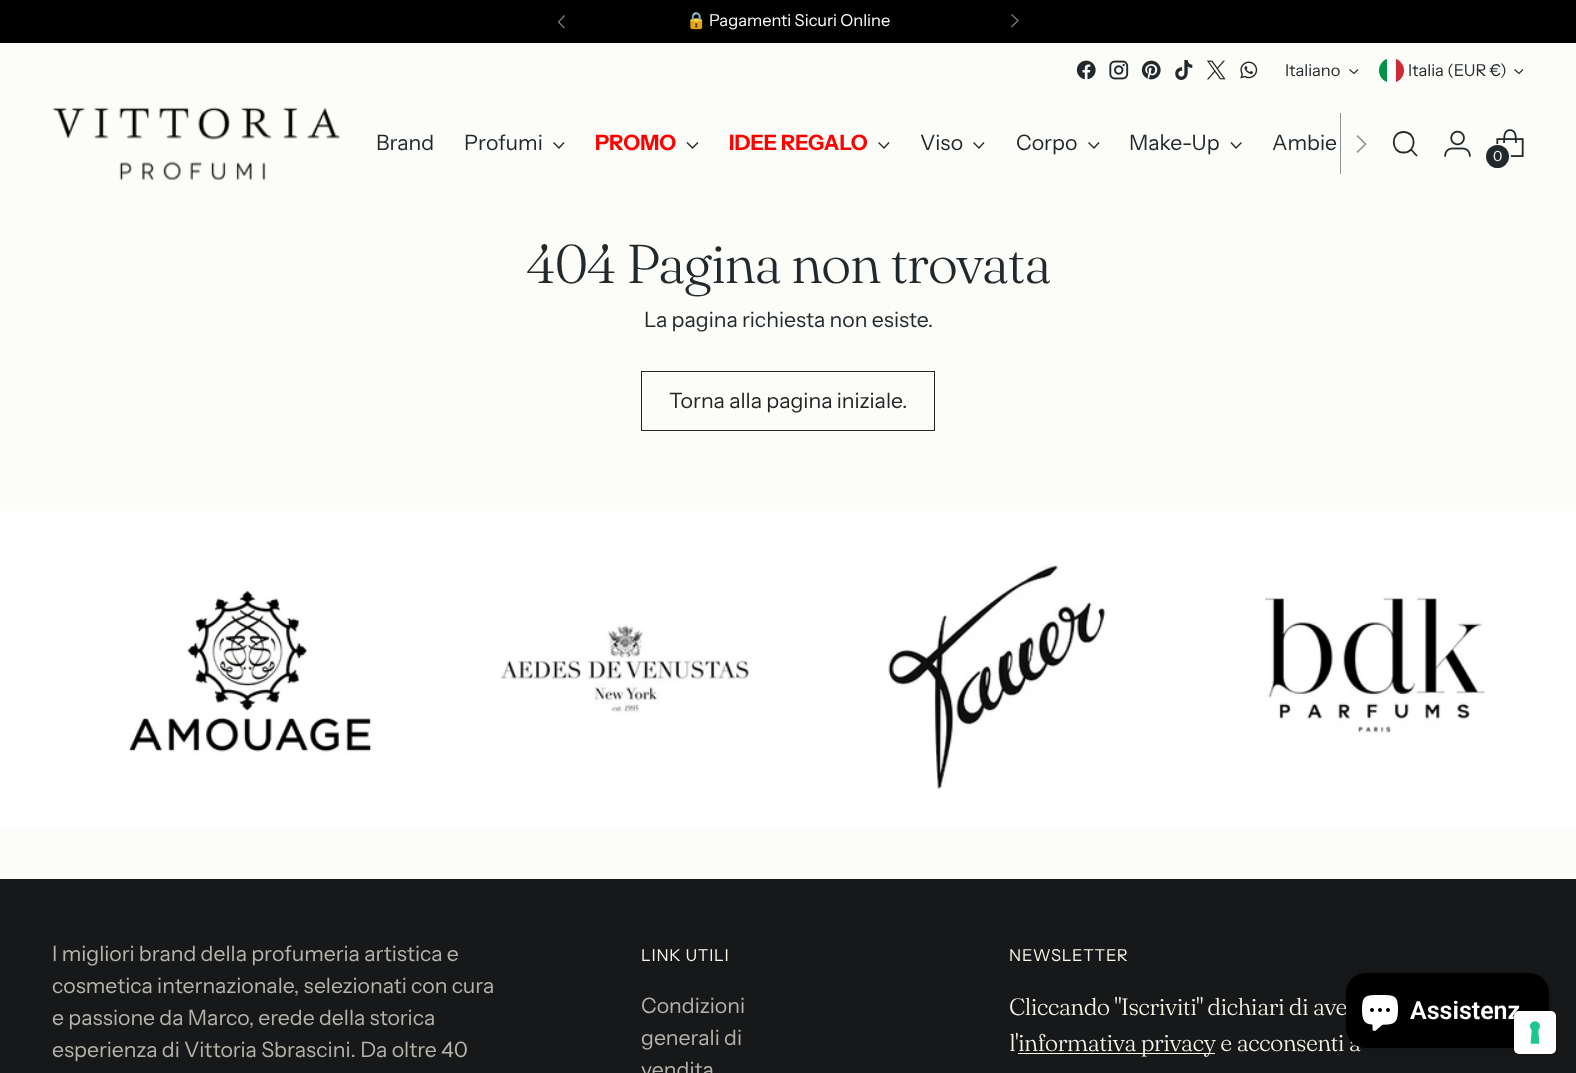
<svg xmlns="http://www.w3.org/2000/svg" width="1576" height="1073">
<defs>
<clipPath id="clip1"><rect x="1379" y="58" width="25" height="25" rx="12.5"/></clipPath>
</defs>
<rect width="100%" height="100%" fill="#fcfcf9"/>
<rect width="1576" height="43" fill="#000"/>
<text x="686" y="26" style="font-family:Noto Color Emoji;font-size:16.5px;fill:#fff">🔒</text>
<text x="709" y="26" style="font-family:Instrument Sans;font-size:16.5px;fill:#fff">Pagamenti Sicuri Online</text>
<path d="M564.5 15.5l-6 6.5l6 6" fill="none" stroke="#808080" stroke-width="1.2"/>
<path d="M1011.5 27l6.5-6.5l-6.5-6" fill="none" stroke="#808080" stroke-width="1.2"/>
<image x="1076" y="60" width="20" height="20" href="media/1.png"/>
<image x="1109" y="60" width="20" height="20" href="media/2.png"/>
<image x="1141" y="60" width="20" height="20" href="media/3.png"/>
<image x="1175" y="60" width="18" height="20" href="media/4.png"/>
<image x="1207" y="60" width="19" height="20" href="media/5.png"/>
<image x="1240" y="61" width="18" height="18" href="media/6.png"/>
<text x="1285" y="76" style="font-family:Instrument Sans;font-size:16.5px;fill:#22292d">Italiano</text>
<path d="M1349.5 69.5l4.5 4l4-4" fill="none" stroke="#22292d" stroke-width="1.1"/>
<circle cx="1391.5" cy="70.5" r="12.5" fill="#fff"/>
<g clip-path="url(#clip1)">
<rect x="1379" y="58" width="8" height="25" fill="#009246"/>
<rect x="1396" y="58" width="8" height="25" fill="#ce2b37"/>
</g>
<text x="1408" y="76" style="font-family:Instrument Sans;font-size:16.5px;fill:#22292d">Italia (EUR €)</text>
<path d="M1514.5 69.5l4.5 4l4-4" fill="none" stroke="#22292d" stroke-width="1.1"/>
<image x="52" y="107" width="288" height="73" href="media/7.png"/>
<text x="376" y="150" style="font-family:Instrument Sans;font-size:21.25px;fill:#22292d">Brand</text>
<text x="464" y="150" style="font-family:Instrument Sans;font-size:21.25px;fill:#22292d">Profumi</text>
<path d="M553.5 142.5l5.5 5.5l5-5.5" fill="none" stroke="#22292d" stroke-width="1.4"/>
<text x="595" y="150" style="font-family:Instrument Sans;font-size:21.25px;font-weight:bold;fill:#f00">PROMO</text>
<path d="M687 142.5l5.5 5.5l5.5-5.5" fill="none" stroke="#22292d" stroke-width="1.4"/>
<text x="729" y="150" style="font-family:Instrument Sans;font-size:21.25px;font-weight:bold;fill:#f00">IDEE REGALO</text>
<path d="M878.5 142.5l5.5 5.5l5-5.5" fill="none" stroke="#22292d" stroke-width="1.4"/>
<text x="920" y="150" style="font-family:Instrument Sans;font-size:21.25px;fill:#22292d">Viso</text>
<path d="M973.5 142.5l5.5 5.5l5-5.5" fill="none" stroke="#22292d" stroke-width="1.4"/>
<text x="1016" y="150" style="font-family:Instrument Sans;font-size:21.25px;fill:#22292d">Corpo</text>
<path d="M1088.5 142.5l5.5 5.5l5-5.5" fill="none" stroke="#22292d" stroke-width="1.4"/>
<text x="1129" y="150" style="font-family:Instrument Sans;font-size:21.25px;fill:#22292d">Make-Up</text>
<path d="M1231 142.5l5 5.5l5.5-5.5" fill="none" stroke="#22292d" stroke-width="1.4"/>
<text x="1272" y="150" style="font-family:Instrument Sans;font-size:21.25px;fill:#22292d">Ambie</text>
<rect x="1340" y="113" width="1" height="61" fill="#8f9393"/>
<path d="M1357 152.5l8.5-8.5l-8.5-8.5" fill="none" stroke="#8f9393" stroke-width="1.7"/>
<path d="M1403.5 152.5c13.5 0 13.5-20.5 0-20.5c-13 0-13 20.5 0 20.5z" fill="none" stroke="#22292d" stroke-width="1.8" stroke-linecap="round"/>
<path d="M1411 149.5l6 6.5" fill="none" stroke="#22292d" stroke-width="1.8"/>
<image x="1444" y="130" width="27" height="27" href="media/8.png"/>
<image x="1496" y="129" width="28" height="28" href="media/9.png"/>
<circle cx="1498" cy="157" r="12" fill="none" stroke="#fcfcf9" stroke-width="2"/>
<circle cx="1497.5" cy="156.5" r="11.5" fill="#22292d"/>
<text x="1493" y="161" style="font-family:Instrument Sans;font-size:14px;fill:#fcfcf9">0</text>
<text x="526" y="283" style="font-family:Fraunces;font-size:54.5px;font-weight:300;letter-spacing:-1.4px;fill:#22292d">404 Pagina non trovata</text>
<text x="644" y="327" style="font-family:Instrument Sans;font-size:21.25px;fill:#22292d">La pagina richiesta non esiste.</text>
<rect x="641.5" y="371.5" width="293" height="59" fill="none" stroke="#242526"/>
<text x="669" y="408" style="font-family:Instrument Sans;font-size:21.25px;fill:#242526">Torna alla pagina iniziale.</text>
<rect y="511" width="1576" height="318" fill="#fff"/>
<image x="128" y="590" width="247" height="164" href="media/10.png"/>
<image x="500" y="624" width="250" height="90" href="media/11.png"/>
<image x="888" y="564" width="219" height="225" href="media/12.png"/>
<image x="1265" y="597" width="220" height="139" href="media/13.png"/>
<rect y="879" width="1576" height="194" fill="#171819"/>
<text x="52" y="961" style="font-family:Instrument Sans;font-size:21.25px;fill:#b4b4aa">I migliori brand della profumeria artistica e</text>
<text x="52" y="993" style="font-family:Instrument Sans;font-size:21.25px;fill:#b4b4aa">cosmetica internazionale, selezionati con cura</text>
<text x="52" y="1025" style="font-family:Instrument Sans;font-size:21.25px;fill:#b4b4aa">e passione da Marco, erede della storica</text>
<text x="52" y="1057" style="font-family:Instrument Sans;font-size:21.25px;fill:#b4b4aa">esperienza di Vittoria Sbrascini. Da oltre 40</text>
<text x="641" y="961" style="font-family:Instrument Sans;font-size:16.5px;letter-spacing:0.75px;fill:#f7f7e8">LINK UTILI</text>
<text x="641" y="1013" style="font-family:Instrument Sans;font-size:21.25px;fill:#b4b4aa">Condizioni</text>
<text x="641" y="1045" style="font-family:Instrument Sans;font-size:21.25px;fill:#b4b4aa">generali di</text>
<text x="641" y="1077" style="font-family:Instrument Sans;font-size:21.25px;fill:#b4b4aa">vendita</text>
<text x="1009" y="961" style="font-family:Instrument Sans;font-size:16.5px;letter-spacing:0.75px;fill:#f7f7e8">NEWSLETTER</text>
<text x="1009" y="1015" style="font-family:'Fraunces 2';font-size:23.6px;font-weight:300;letter-spacing:-0.6px;fill:#f7f7e8">Cliccando "Iscriviti" dichiari di ave</text>
<text x="1009" y="1051" style="font-family:'Fraunces 2';font-size:23.6px;font-weight:300;letter-spacing:-0.6px;fill:#f7f7e8">l'</text>
<rect x="1018" y="1053" width="197" height="1" fill="#f7f7e8"/>
<text x="1018" y="1051" style="font-family:'Fraunces 2';font-size:23.6px;font-weight:300;letter-spacing:-0.6px;fill:#f7f7e8">informativa privacy e acconsenti a</text>
<rect x="1346" y="973" width="203" height="75" rx="20" fill="#00000026" filter="blur(3px)"/>
<rect x="1346" y="973" width="203" height="75" rx="20" fill="#000"/>
<image x="1362" y="995" width="36" height="36" href="media/14.png"/>
<text x="1410" y="1019" style="font-family:Roboto;font-size:25px;font-weight:600;fill:#fff">Assistenz</text>
<rect x="1513.5" y="1010.5" width="44" height="44" rx="5.5" fill="none" stroke="#00000026"/>
<rect x="1514" y="1011" width="42" height="43" rx="5" fill="#fff"/>
<image x="1530" y="1021" width="10" height="23" href="media/15.png"/>
</svg>
